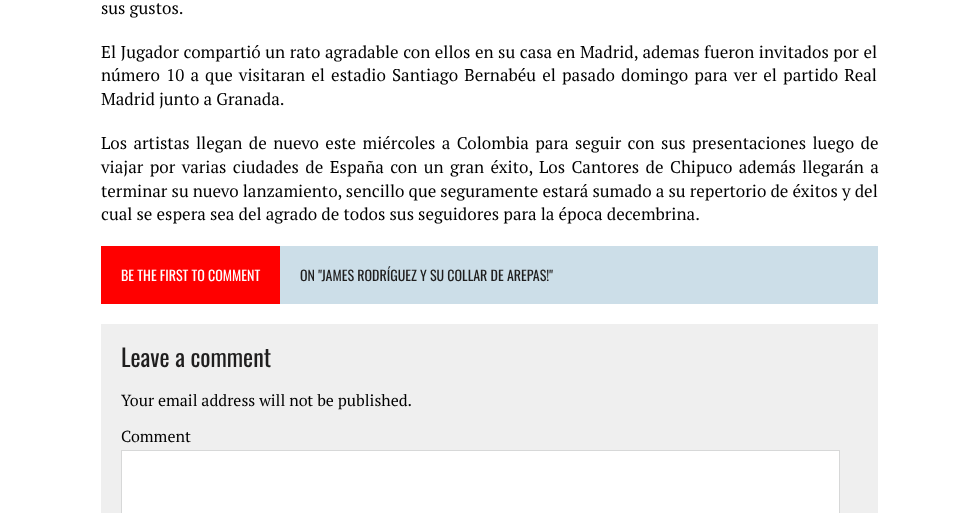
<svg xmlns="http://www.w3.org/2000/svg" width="978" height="513">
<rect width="100%" height="100%" fill="#fff"/>
<text x="101" y="14" style="font-family:PT Serif;font-size:17px;fill:#000">sus gustos.</text>
<text x="101" y="58" word-spacing="0.4" style="font-family:PT Serif;font-size:17px;fill:#000">El Jugador compartió un rato agradable con ellos en su casa en Madrid, ademas fueron invitados por el</text>
<text x="101" y="81" word-spacing="2" style="font-family:PT Serif;font-size:17px;fill:#000">número 10 a que visitaran el estadio Santiago Bernabéu el pasado domingo para ver el partido Real</text>
<text x="101" y="105" style="font-family:PT Serif;font-size:17px;fill:#000">Madrid junto a Granada.</text>
<text x="101" y="149" word-spacing="2.25" style="font-family:PT Serif;font-size:17px;fill:#000">Los artistas llegan de nuevo este miércoles a Colombia para seguir con sus presentaciones luego de</text>
<text x="101" y="173" word-spacing="2.25" style="font-family:PT Serif;font-size:17px;fill:#000">viajar por varias ciudades de España con un gran éxito, Los Cantores de Chipuco además llegarán a</text>
<text x="101" y="197" style="font-family:PT Serif;font-size:17px;fill:#000">terminar su nuevo lanzamiento, sencillo que seguramente estará sumado a su repertorio de éxitos y del</text>
<text x="101" y="220" style="font-family:PT Serif;font-size:17px;fill:#000">cual se espera sea del agrado de todos sus seguidores para la época decembrina.</text>
<rect x="280" y="246" width="598" height="58" fill="#ccdee8"/>
<rect x="101" y="246" width="179" height="58" fill="#f00"/>
<text x="121" y="281" style="font-family:Oswald;font-size:14px;fill:#fff">BE THE FIRST TO COMMENT</text>
<text x="300" y="281" style="font-family:Oswald;font-size:14px;fill:#1f1e1e">ON "JAMES RODRÍGUEZ Y SU COLLAR DE AREPAS!"</text>
<rect x="101" y="324" width="777" height="189" fill="#efefef"/>
<text x="121" y="367" style="font-family:Oswald;font-size:24px;fill:#1f1e1e">Leave a comment</text>
<text x="121" y="406" style="font-family:PT Serif;font-size:16px;fill:#000">Your email address will not be published.</text>
<text x="121" y="442" style="font-family:PT Serif;font-size:16px;fill:#000">Comment</text>
<rect x="121.5" y="450.5" width="718" height="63" fill="#fff" stroke="#d7d8d8"/>
</svg>
